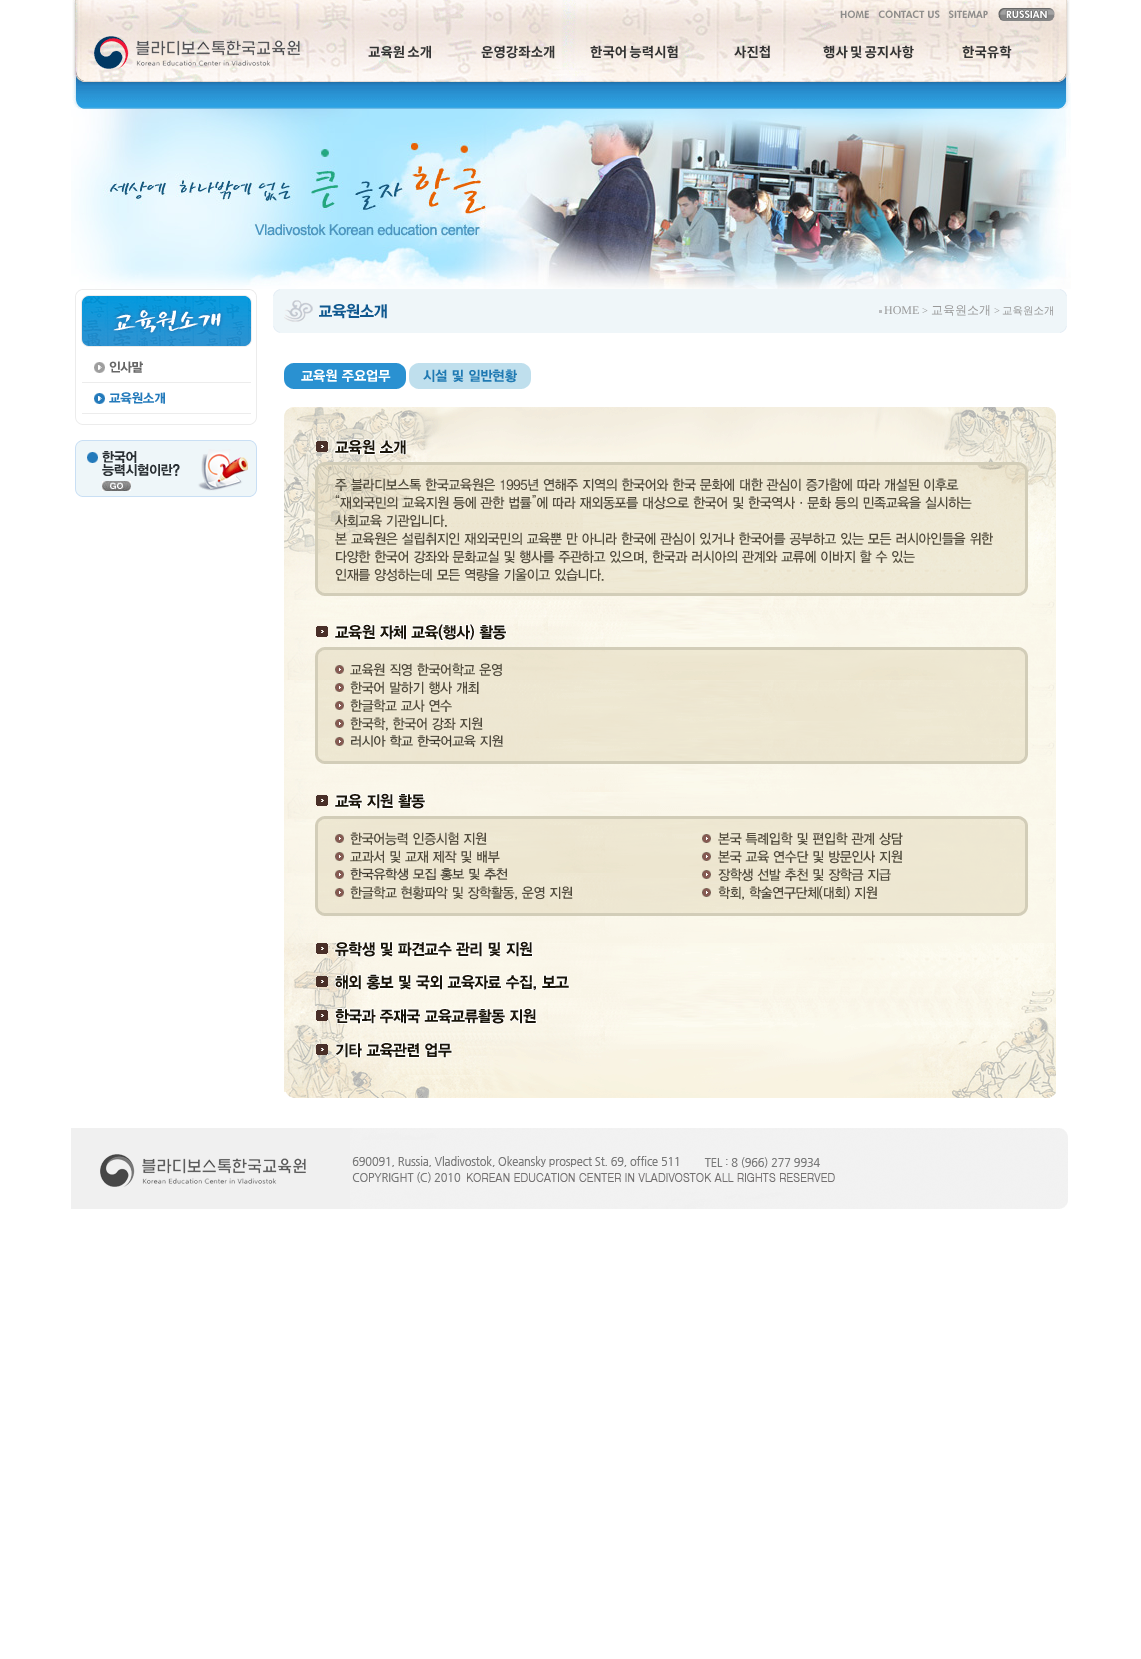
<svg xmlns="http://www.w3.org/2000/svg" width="1141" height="1659">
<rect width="100%" height="100%" fill="#fff"/>
<image x="72" y="0" width="999" height="109" href="media/1.png"/>
<image x="94" y="1" width="214" height="81" href="media/2.png"/>
<image x="834" y="8" width="40" height="13" href="media/3.png"/>
<image x="874" y="8" width="71" height="13" href="media/4.png"/>
<image x="945" y="8" width="49" height="13" href="media/5.png"/>
<image x="994" y="8" width="62" height="13" href="media/6.png"/>
<text x="368" y="57" word-spacing="-1" style="font-family:Noto Sans KR;font-size:13.5px;font-weight:bold;fill:#333">교육원 소개</text>
<text x="481" y="57" style="font-family:Noto Sans KR;font-size:13.5px;font-weight:bold;fill:#333">운영강좌소개</text>
<text x="590" y="57" word-spacing="-1" style="font-family:Noto Sans KR;font-size:13.5px;font-weight:bold;fill:#333">한국어 능력시험</text>
<text x="734" y="57" style="font-family:Noto Sans KR;font-size:13.5px;font-weight:bold;fill:#333">사진첩</text>
<text x="823" y="57" word-spacing="-1" style="font-family:Noto Sans KR;font-size:13.5px;font-weight:bold;fill:#333">행사 및 공지사항</text>
<text x="962" y="57" style="font-family:Noto Sans KR;font-size:13.5px;font-weight:bold;fill:#333">한국유학</text>
<image x="71" y="109" width="1000" height="180" href="media/7.png"/>
<image x="75" y="289" width="182" height="63" href="media/8.png"/>
<image x="75" y="352" width="182" height="30" href="media/9.png"/>
<image x="75" y="382" width="182" height="1" href="media/10.png"/>
<image x="75" y="383" width="182" height="30" href="media/11.png"/>
<image x="75" y="413" width="182" height="1" href="media/10.png"/>
<image x="75" y="414" width="182" height="11" href="media/12.png"/>
<image x="75" y="440" width="182" height="57" href="media/13.png"/>
<image x="273" y="289" width="7" height="7" href="media/14.png"/>
<rect x="280" y="289" width="780" height="7" fill="#eff6f9"/>
<image x="1060" y="289" width="7" height="7" href="media/15.png"/>
<rect x="273" y="296" width="794" height="30" fill="#eff6f9"/>
<image x="284" y="300" width="29" height="22" href="media/16.png"/>
<image x="319" y="303" width="68" height="16" href="media/17.png"/>
<rect x="879" y="310" width="3" height="3" fill="#b9bbbd"/>
<text x="884" y="314" style="font-family:Liberation Serif;font-size:12px;fill:#999">HOME</text>
<text x="922" y="314" style="font-family:Liberation Serif;font-size:10.5px;fill:#999">&gt;</text>
<text x="931" y="314" style="font-family:WenQuanYi Zen Hei;font-size:12px;font-weight:500;fill:#999">교육원소개</text>
<text x="994" y="314" style="font-family:Liberation Serif;font-size:10.5px;fill:#999">&gt;</text>
<text x="1002" y="314" style="font-family:WenQuanYi Zen Hei;font-size:10.5px;font-weight:500;fill:#999">교육원소개</text>
<image x="273" y="326" width="7" height="7" href="media/18.png"/>
<rect x="280" y="326" width="780" height="7" fill="#eff6f9"/>
<image x="1060" y="326" width="7" height="7" href="media/19.png"/>
<image x="284" y="363" width="122" height="26" href="media/20.png"/>
<image x="409" y="363" width="122" height="26" href="media/21.png"/>
<image x="284" y="407" width="772" height="691" href="media/22.png"/>
<image x="71" y="1128" width="997" height="81" href="media/23.png"/>
</svg>
